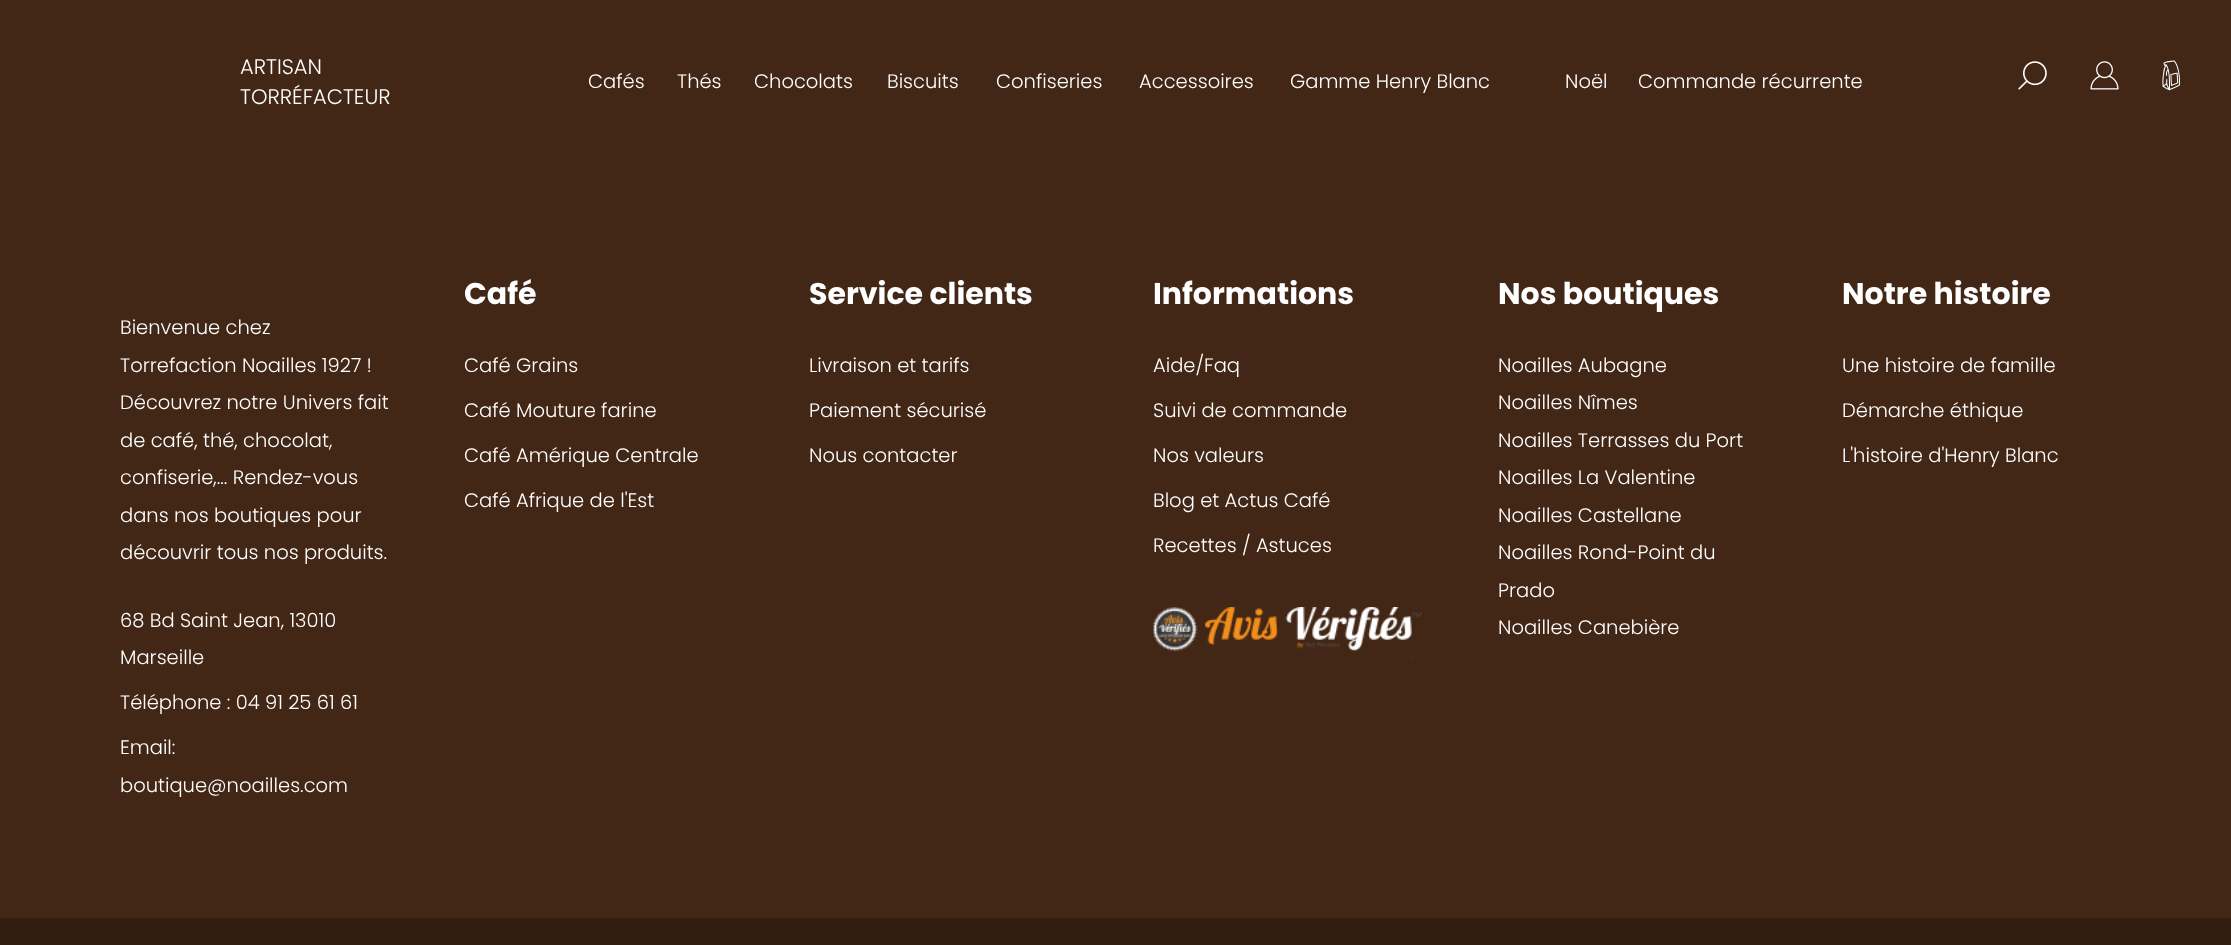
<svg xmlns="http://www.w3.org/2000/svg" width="2231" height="945">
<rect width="100%" height="100%" fill="#422716"/>
<text x="240" y="74" style="font-family:Poppins;font-size:21px;font-weight:300;fill:#fff">ARTISAN</text>
<text x="240" y="104" style="font-family:Poppins;font-size:21px;font-weight:300;fill:#fff">TORRÉFACTEUR</text>
<text x="588" y="88" style="font-family:Poppins;font-size:19.5px;font-weight:300;fill:#fff">Cafés</text>
<text x="677" y="88" style="font-family:Poppins;font-size:19.5px;font-weight:300;fill:#fff">Thés</text>
<text x="754" y="88" style="font-family:Poppins;font-size:19.5px;font-weight:300;fill:#fff">Chocolats</text>
<text x="887" y="88" style="font-family:Poppins;font-size:19.5px;font-weight:300;fill:#fff">Biscuits</text>
<text x="996" y="88" style="font-family:Poppins;font-size:19.5px;font-weight:300;fill:#fff">Confiseries</text>
<text x="1139" y="88" style="font-family:Poppins;font-size:19.5px;font-weight:300;fill:#fff">Accessoires</text>
<text x="1290" y="88" style="font-family:Poppins;font-size:19.5px;font-weight:300;fill:#fff">Gamme Henry Blanc</text>
<text x="1565" y="88" style="font-family:Poppins;font-size:19.5px;font-weight:300;fill:#fff">Noël</text>
<text x="1638" y="88" style="font-family:Poppins;font-size:19.5px;font-weight:300;fill:#fff">Commande récurrente</text>
<image x="2018" y="61" width="29" height="29" href="media/1.png"/>
<image x="2090" y="61" width="29" height="29" href="media/2.png"/>
<image x="2162" y="60" width="18" height="31" href="media/3.png"/>
<text x="120" y="334" style="font-family:Poppins;font-size:19.5px;font-weight:300;fill:#fff">Bienvenue chez</text>
<text x="120" y="372" style="font-family:Poppins;font-size:19.5px;font-weight:300;fill:#fff">Torrefaction Noailles 1927 !</text>
<text x="120" y="409" style="font-family:Poppins;font-size:19.5px;font-weight:300;fill:#fff">Découvrez notre Univers fait</text>
<text x="120" y="447" style="font-family:Poppins;font-size:19.5px;font-weight:300;fill:#fff">de café, thé, chocolat,</text>
<text x="120" y="484" style="font-family:Poppins;font-size:19.5px;font-weight:300;fill:#fff">confiserie,... Rendez-vous</text>
<text x="120" y="522" style="font-family:Poppins;font-size:19.5px;font-weight:300;fill:#fff">dans nos boutiques pour</text>
<text x="120" y="559" style="font-family:Poppins;font-size:19.5px;font-weight:300;fill:#fff">découvrir tous nos produits.</text>
<text x="120" y="627" style="font-family:Poppins;font-size:19.5px;font-weight:300;fill:#fff">68 Bd Saint Jean, 13010</text>
<text x="120" y="664" style="font-family:Poppins;font-size:19.5px;font-weight:300;fill:#fff">Marseille</text>
<text x="120" y="709" style="font-family:Poppins;font-size:19.5px;font-weight:300;fill:#fff">Téléphone : 04 91 25 61 61</text>
<text x="120" y="754" style="font-family:Poppins;font-size:19.5px;font-weight:300;fill:#fff">Email:</text>
<text x="120" y="792" style="font-family:Poppins;font-size:19.5px;font-weight:300;fill:#fff">boutique@noailles.com</text>
<text x="464" y="304" style="font-family:Poppins;font-size:30px;font-weight:bold;fill:#fff">Café</text>
<text x="464" y="372" style="font-family:Poppins;font-size:19.5px;font-weight:300;fill:#fff">Café Grains</text>
<text x="464" y="417" style="font-family:Poppins;font-size:19.5px;font-weight:300;fill:#fff">Café Mouture farine</text>
<text x="464" y="462" style="font-family:Poppins;font-size:19.5px;font-weight:300;fill:#fff">Café Amérique Centrale</text>
<text x="464" y="507" style="font-family:Poppins;font-size:19.5px;font-weight:300;fill:#fff">Café Afrique de l'Est</text>
<text x="809" y="304" style="font-family:Poppins;font-size:30px;font-weight:bold;fill:#fff">Service clients</text>
<text x="809" y="372" style="font-family:Poppins;font-size:19.5px;font-weight:300;fill:#fff">Livraison et tarifs</text>
<text x="809" y="417" style="font-family:Poppins;font-size:19.5px;font-weight:300;fill:#fff">Paiement sécurisé</text>
<text x="809" y="462" style="font-family:Poppins;font-size:19.5px;font-weight:300;fill:#fff">Nous contacter</text>
<text x="1153" y="304" style="font-family:Poppins;font-size:30px;font-weight:bold;fill:#fff">Informations</text>
<text x="1153" y="372" style="font-family:Poppins;font-size:19.5px;font-weight:300;fill:#fff">Aide/Faq</text>
<text x="1153" y="417" style="font-family:Poppins;font-size:19.5px;font-weight:300;fill:#fff">Suivi de commande</text>
<text x="1153" y="462" style="font-family:Poppins;font-size:19.5px;font-weight:300;fill:#fff">Nos valeurs</text>
<text x="1153" y="507" style="font-family:Poppins;font-size:19.5px;font-weight:300;fill:#fff">Blog et Actus Café</text>
<text x="1153" y="552" style="font-family:Poppins;font-size:19.5px;font-weight:300;fill:#fff">Recettes / Astuces</text>
<image x="1153" y="607" width="270" height="51" href="media/4.png"/>
<text x="1498" y="304" style="font-family:Poppins;font-size:30px;font-weight:bold;fill:#fff">Nos boutiques</text>
<text x="1498" y="372" style="font-family:Poppins;font-size:19.5px;font-weight:300;fill:#fff">Noailles Aubagne</text>
<text x="1498" y="409" style="font-family:Poppins;font-size:19.5px;font-weight:300;fill:#fff">Noailles Nîmes</text>
<text x="1498" y="447" style="font-family:Poppins;font-size:19.5px;font-weight:300;fill:#fff">Noailles Terrasses du Port</text>
<text x="1498" y="484" style="font-family:Poppins;font-size:19.5px;font-weight:300;fill:#fff">Noailles La Valentine</text>
<text x="1498" y="522" style="font-family:Poppins;font-size:19.5px;font-weight:300;fill:#fff">Noailles Castellane</text>
<text x="1498" y="559" style="font-family:Poppins;font-size:19.5px;font-weight:300;fill:#fff">Noailles Rond-Point du</text>
<text x="1498" y="597" style="font-family:Poppins;font-size:19.5px;font-weight:300;fill:#fff">Prado</text>
<text x="1498" y="634" style="font-family:Poppins;font-size:19.5px;font-weight:300;fill:#fff">Noailles Canebière</text>
<text x="1842" y="304" style="font-family:Poppins;font-size:30px;font-weight:bold;fill:#fff">Notre histoire</text>
<text x="1842" y="372" style="font-family:Poppins;font-size:19.5px;font-weight:300;fill:#fff">Une histoire de famille</text>
<text x="1842" y="417" style="font-family:Poppins;font-size:19.5px;font-weight:300;fill:#fff">Démarche éthique</text>
<text x="1842" y="462" style="font-family:Poppins;font-size:19.5px;font-weight:300;fill:#fff">L'histoire d'Henry Blanc</text>
<rect y="918" width="2231" height="27" fill="#321d10"/>
</svg>
